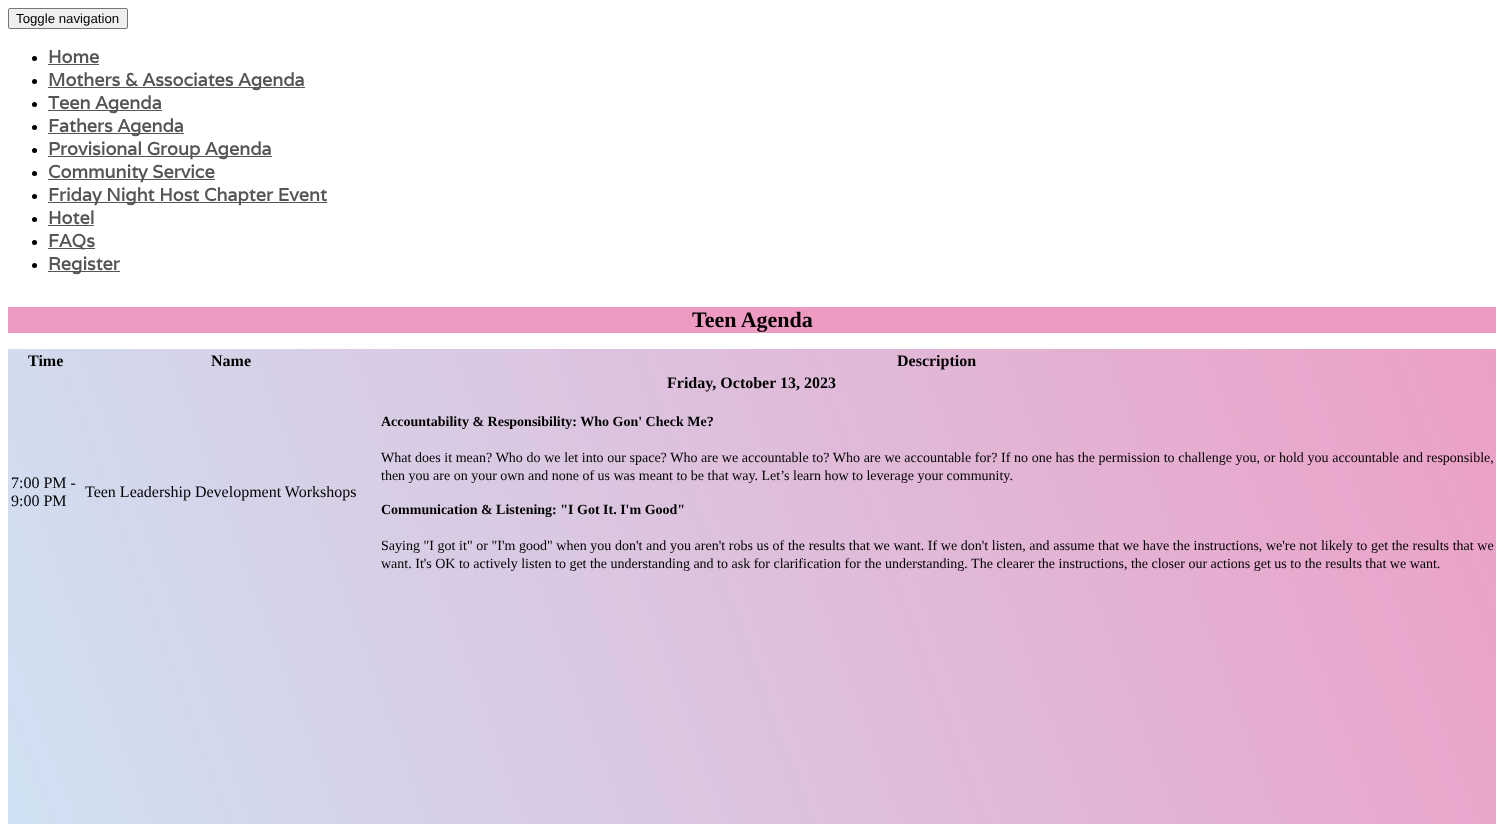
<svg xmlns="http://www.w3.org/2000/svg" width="1504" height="824">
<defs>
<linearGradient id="g1" gradientUnits="userSpaceOnUse" x1="-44" y1="702" x2="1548" y2="122"><stop offset="0" stop-color="#cfe2f3"/><stop offset="1" stop-color="#ee9ac3"/></linearGradient>
</defs>
<rect width="100%" height="100%" fill="#fff"/>
<rect x="8.5" y="8.5" width="119" height="20" rx="1.5" fill="#efefef" stroke="#767676"/>
<text x="16" y="23" style="font-family:Liberation Sans;font-size:13.25px;fill:#000">Toggle navigation</text>
<circle cx="34.5" cy="58.5" r="2.5" fill="#000"/>
<text x="48" y="63" style="font-family:Varela;font-size:18px;font-weight:bold;fill:#555">Home</text>
<rect x="48" y="64" width="51" height="1" fill="#555"/>
<circle cx="34.5" cy="81.5" r="2.5" fill="#000"/>
<rect x="48" y="87" width="257" height="1" fill="#555"/>
<text x="48" y="86" style="font-family:Varela;font-size:18px;font-weight:bold;fill:#555">Mothers &amp; Associates Agenda</text>
<circle cx="34.5" cy="104.5" r="2.5" fill="#000"/>
<rect x="48" y="110" width="114" height="1" fill="#555"/>
<text x="48" y="109" style="font-family:Varela;font-size:18px;font-weight:bold;fill:#555">Teen Agenda</text>
<circle cx="34.5" cy="127.5" r="2.5" fill="#000"/>
<rect x="48" y="133" width="136" height="1" fill="#555"/>
<text x="48" y="132" style="font-family:Varela;font-size:18px;font-weight:bold;fill:#555">Fathers Agenda</text>
<circle cx="34.5" cy="150.5" r="2.5" fill="#000"/>
<rect x="48" y="156" width="224" height="1" fill="#555"/>
<text x="48" y="155" style="font-family:Varela;font-size:18px;font-weight:bold;fill:#555">Provisional Group Agenda</text>
<circle cx="34.5" cy="173.5" r="2.5" fill="#000"/>
<rect x="48" y="179" width="167" height="1" fill="#555"/>
<text x="48" y="178" style="font-family:Varela;font-size:18px;font-weight:bold;fill:#555">Community Service</text>
<circle cx="34.5" cy="196.5" r="2.5" fill="#000"/>
<rect x="48" y="202" width="279" height="1" fill="#555"/>
<text x="48" y="201" style="font-family:Varela;font-size:18px;font-weight:bold;fill:#555">Friday Night Host Chapter Event</text>
<circle cx="34.5" cy="219.5" r="2.5" fill="#000"/>
<text x="48" y="224" style="font-family:Varela;font-size:18px;font-weight:bold;fill:#555">Hotel</text>
<rect x="48" y="225" width="46" height="1" fill="#555"/>
<circle cx="34.5" cy="242.5" r="2.5" fill="#000"/>
<rect x="48" y="248" width="47" height="1" fill="#555"/>
<text x="48" y="247" style="font-family:Varela;font-size:18px;font-weight:bold;fill:#555">FAQs</text>
<circle cx="34.5" cy="265.5" r="2.5" fill="#000"/>
<rect x="48" y="271" width="72" height="1" fill="#555"/>
<text x="48" y="270" style="font-family:Varela;font-size:18px;font-weight:bold;fill:#555">Register</text>
<rect x="8" y="307" width="1488" height="26" fill="#ee9ac3"/>
<text x="692" y="327" style="font-family:Liberation Serif;font-size:22px;font-weight:bold;fill:#000">Teen Agenda</text>
<rect x="8" y="349" width="1488" height="475" fill="url(#g1)"/>
<text x="28" y="366" style="font-family:Liberation Serif;font-size:16px;font-weight:bold;fill:#000">Time</text>
<text x="211" y="366" style="font-family:Liberation Serif;font-size:16px;font-weight:bold;fill:#000">Name</text>
<text x="897" y="366" style="font-family:Liberation Serif;font-size:16px;font-weight:bold;fill:#000">Description</text>
<text x="667" y="388" style="font-family:Liberation Serif;font-size:16px;font-weight:bold;fill:#000">Friday, October 13, 2023</text>
<text x="11" y="488" style="font-family:Liberation Serif;font-size:16px;fill:#000">7:00 PM -</text>
<text x="11" y="506" style="font-family:Liberation Serif;font-size:16px;fill:#000">9:00 PM</text>
<text x="85" y="497" style="font-family:Liberation Serif;font-size:16px;fill:#000">Teen Leadership Development Workshops</text>
<text x="381" y="426" style="font-family:Liberation Serif;font-size:14px;font-weight:bold;fill:#000">Accountability &amp; Responsibility: Who Gon' Check Me?</text>
<text x="381" y="462" word-spacing="0.15" style="font-family:Liberation Serif;font-size:14px;fill:#000">What does it mean? Who do we let into our space? Who are we accountable to? Who are we accountable for? If no one has the permission to challenge you, or hold you accountable and responsible,</text>
<text x="381" y="480" style="font-family:Liberation Serif;font-size:14px;fill:#000">then you are on your own and none of us was meant to be that way. Let’s learn how to leverage your community.</text>
<text x="381" y="514" style="font-family:Liberation Serif;font-size:14px;font-weight:bold;fill:#000">Communication &amp; Listening: "I Got It. I'm Good"</text>
<text x="381" y="550" word-spacing="0.15" style="font-family:Liberation Serif;font-size:14px;fill:#000">Saying "I got it" or "I'm good" when you don't and you aren't robs us of the results that we want. If we don't listen, and assume that we have the instructions, we're not likely to get the results that we</text>
<text x="381" y="568" style="font-family:Liberation Serif;font-size:14px;fill:#000">want. It's OK to actively listen to get the understanding and to ask for clarification for the understanding. The clearer the instructions, the closer our actions get us to the results that we want.</text>
</svg>
